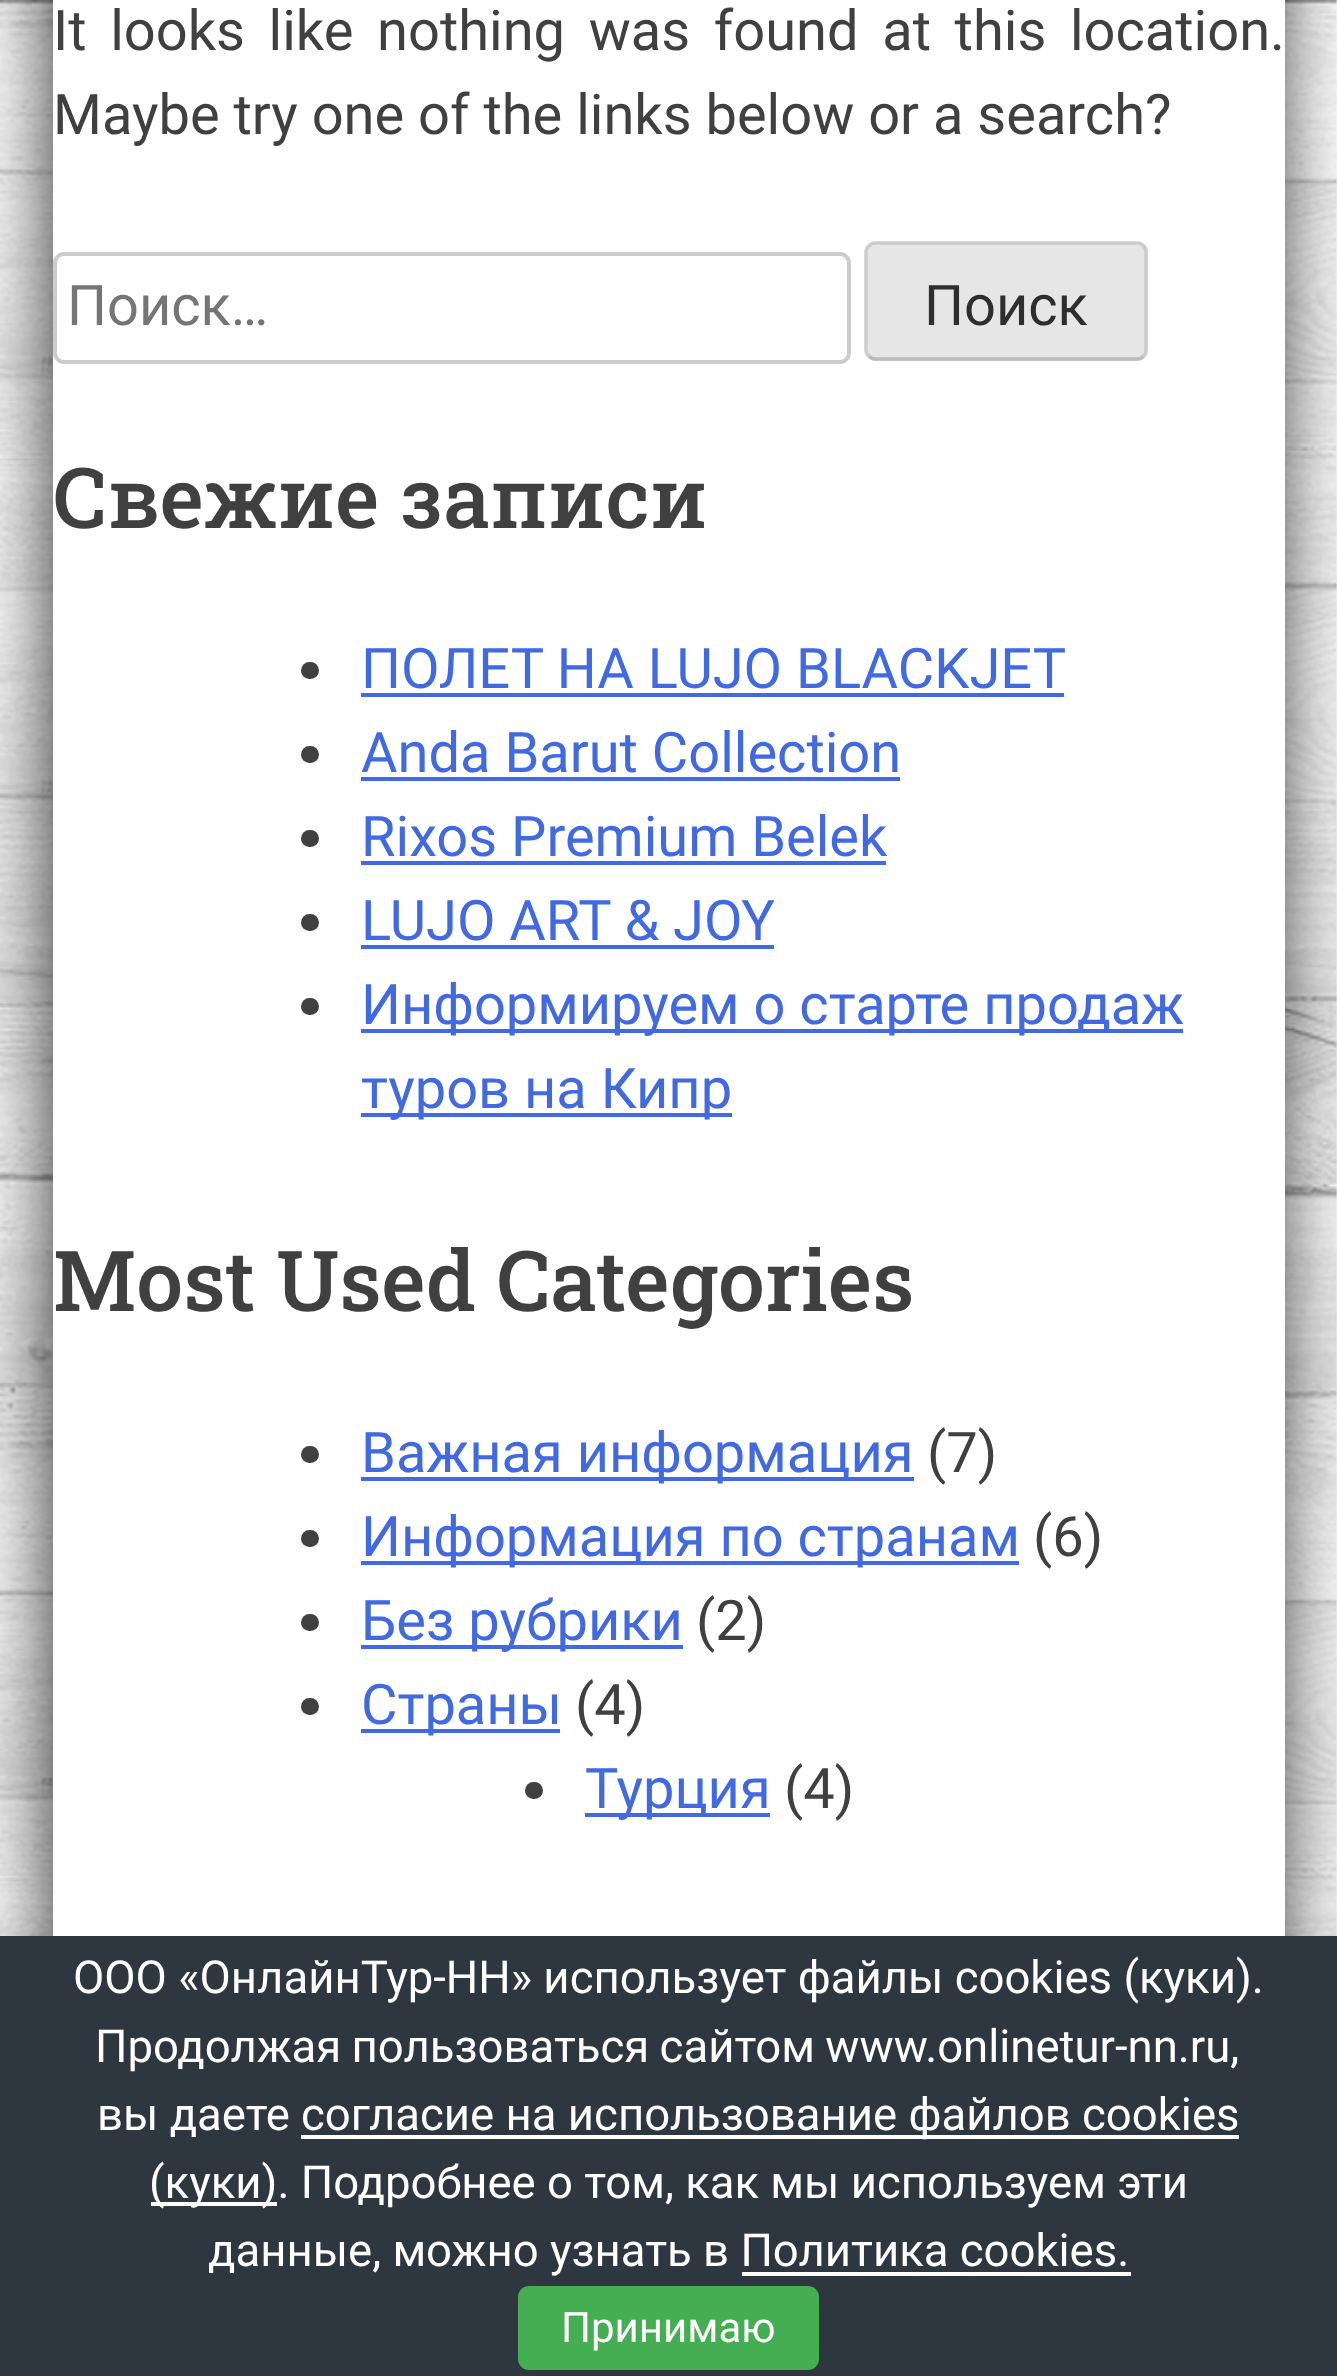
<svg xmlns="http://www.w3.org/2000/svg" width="1337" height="2376">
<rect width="100%" height="100%" fill="#fff"/>
<image x="0" y="0" width="1337" height="1936" href="media/1.png"/>
<rect x="49" y="-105" width="1232" height="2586" fill="#000000bf" filter="blur(35px)"/>
<rect x="53" width="1232" height="1936" fill="#fff"/>
<text x="53" y="50" word-spacing="9.75" style="font-family:Roboto;font-size:56px;fill:#404040">It looks like nothing was found at this location.</text>
<text x="53" y="134" style="font-family:Roboto;font-size:56px;fill:#404040">Maybe try one of the links below or a search?</text>
<rect x="55" y="254" width="794" height="108" rx="9" fill="none" stroke="#ccc" stroke-width="4"/>
<text x="67" y="325" style="font-family:Roboto;font-size:56px;fill:#757575">Поиск…</text>
<rect x="865" y="242" width="283" height="119" rx="11" fill="#e6e6e6"/>
<path d="M1143.5 356c-1.5 2-3.5 3-6 3h-262.5c-2.5 0-4.5-1-6-3" fill="none" stroke="#bbb" stroke-width="3.5"/>
<path d="M869 356c-2-1.5-3-3.5-3-6v-98c0-2.5 1-4.5 3-6c1.5-2 3.5-3 6-3h262.5c2.5 0 4.5 1 6 3c2 1.5 2.5 3.5 2.5 6v98c0 2.5-.5 4.5-2.5 6" fill="none" stroke="#ccc" stroke-width="3.5"/>
<text x="924" y="325" style="font-family:Roboto;font-size:56px;fill:#2e2e2e">Поиск</text>
<text x="53" y="528" style="font-family:Roboto Slab;font-size:84px;font-weight:500;fill:#404040">Свежие записи</text>
<rect x="301" y="662" width="18" height="17" rx="8.5" fill="#404040"/>
<text x="361" y="688" style="font-family:Roboto;font-size:56px;fill:#4169e1">ПОЛЕТ НА LUJO BLACKJET</text>
<rect x="361" y="693" width="703" height="4" fill="#4169e1"/>
<rect x="301" y="746" width="18" height="17" rx="8.5" fill="#404040"/>
<text x="361" y="772" style="font-family:Roboto;font-size:56px;fill:#4169e1">Anda Barut Collection</text>
<rect x="361" y="777" width="539" height="4" fill="#4169e1"/>
<rect x="301" y="830" width="18" height="17" rx="8.5" fill="#404040"/>
<text x="361" y="856" style="font-family:Roboto;font-size:56px;fill:#4169e1">Rixos Premium Belek</text>
<rect x="361" y="861" width="525" height="4" fill="#4169e1"/>
<rect x="301" y="914" width="18" height="17" rx="8.5" fill="#404040"/>
<text x="361" y="940" style="font-family:Roboto;font-size:56px;fill:#4169e1">LUJO ART &amp; JOY</text>
<rect x="361" y="945" width="413" height="4" fill="#4169e1"/>
<rect x="301" y="998" width="18" height="17" rx="8.5" fill="#404040"/>
<rect x="361" y="1029" width="822" height="4" fill="#4169e1"/>
<text x="361" y="1024" style="font-family:Roboto;font-size:56px;fill:#4169e1">Информируем о старте продаж</text>
<rect x="361" y="1113" width="371" height="4" fill="#4169e1"/>
<text x="361" y="1108" style="font-family:Roboto;font-size:56px;fill:#4169e1">туров на Кипр</text>
<text x="53" y="1311" style="font-family:Roboto Slab;font-size:84px;font-weight:500;fill:#404040">Most Used Categories</text>
<rect x="301" y="1446" width="18" height="17" rx="8.5" fill="#404040"/>
<rect x="361" y="1477" width="553" height="4" fill="#4169e1"/>
<text x="361" y="1472" style="font-family:Roboto;font-size:56px;fill:#4169e1">Важная информация</text>
<text x="927" y="1472" style="font-family:Roboto;font-size:56px;fill:#404040">(7)</text>
<rect x="301" y="1530" width="18" height="17" rx="8.5" fill="#404040"/>
<rect x="361" y="1561" width="658" height="4" fill="#4169e1"/>
<text x="361" y="1556" style="font-family:Roboto;font-size:56px;fill:#4169e1">Информация по странам</text>
<text x="1033" y="1556" style="font-family:Roboto;font-size:56px;fill:#404040">(6)</text>
<rect x="301" y="1614" width="18" height="17" rx="8.5" fill="#404040"/>
<rect x="361" y="1645" width="322" height="4" fill="#4169e1"/>
<text x="361" y="1640" style="font-family:Roboto;font-size:56px;fill:#4169e1">Без рубрики</text>
<text x="696" y="1640" style="font-family:Roboto;font-size:56px;fill:#404040">(2)</text>
<rect x="301" y="1698" width="18" height="17" rx="8.5" fill="#404040"/>
<rect x="361" y="1729" width="199" height="4" fill="#4169e1"/>
<text x="361" y="1724" style="font-family:Roboto;font-size:56px;fill:#4169e1">Страны</text>
<text x="575" y="1724" style="font-family:Roboto;font-size:56px;fill:#404040">(4)</text>
<rect x="525" y="1782" width="18" height="17" rx="8.5" fill="#404040"/>
<rect x="585" y="1813" width="185" height="4" fill="#4169e1"/>
<text x="585" y="1808" style="font-family:Roboto;font-size:56px;fill:#4169e1">Турция</text>
<text x="784" y="1808" style="font-family:Roboto;font-size:56px;fill:#404040">(4)</text>
<rect y="1936" width="1337" height="440" fill="#2e363f"/>
<text x="73" y="1993" style="font-family:Roboto;font-size:45.5px;fill:#fff">ООО «ОнлайнТур-НН» использует файлы cookies (куки).</text>
<text x="95" y="2062" word-spacing="-1" style="font-family:Roboto;font-size:45.5px;fill:#fff">Продолжая пользоваться сайтом www.onlinetur-nn.ru,</text>
<text x="97" y="2130" style="font-family:Roboto;font-size:45.5px;fill:#fff">вы даете</text>
<rect x="301" y="2135" width="938" height="4" fill="#fff"/>
<text x="301" y="2130" style="font-family:Roboto;font-size:45.5px;fill:#fff">согласие на использование файлов cookies</text>
<rect x="151" y="2202" width="126" height="4" fill="#fff"/>
<text x="149" y="2198" style="font-family:Roboto;font-size:45.5px;fill:#fff">(куки). Подробнее о том, как мы используем эти</text>
<text x="208" y="2266" style="font-family:Roboto;font-size:45.5px;fill:#fff">данные, можно узнать в Политика cookies.</text>
<rect x="742" y="2272" width="389" height="4" fill="#fff"/>
<rect x="518" y="2286" width="301" height="84" rx="11" fill="#45ae52"/>
<text x="561" y="2342" style="font-family:Roboto;font-size:42px;fill:#fff">Принимаю</text>
</svg>
